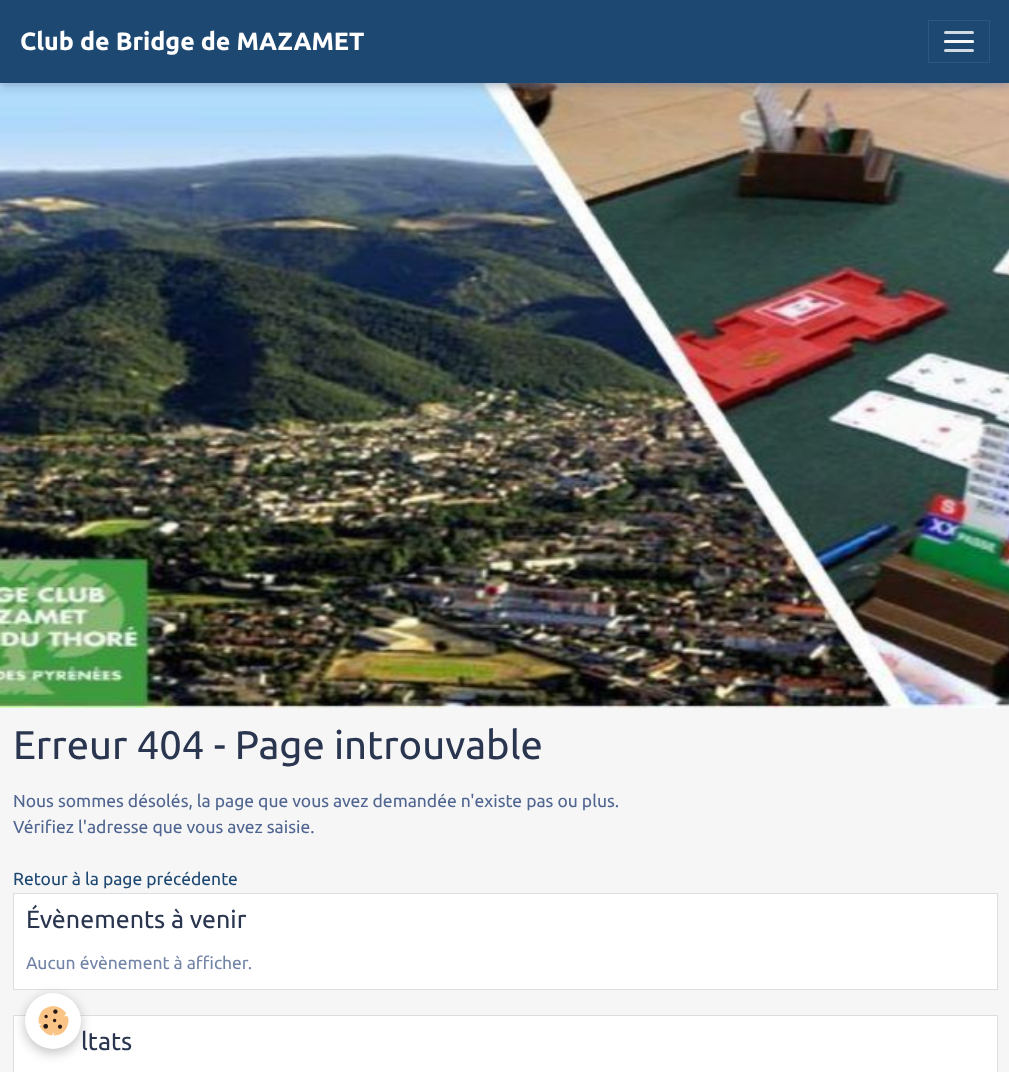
<svg xmlns="http://www.w3.org/2000/svg" width="1009" height="1072">
<rect width="100%" height="100%" fill="#f6f6f7"/>
<image x="0" y="83" width="1009" height="625" href="media/1.png"/>
<rect y="4" width="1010" height="82" fill="#62759b80" filter="blur(5px)"/>
<rect width="1009" height="83" fill="#1d4872"/>
<text x="20" y="50" style="font-family:Ubuntu;font-size:25px;font-weight:bold;fill:#fff">Club de Bridge de MAZAMET</text>
<rect x="928.5" y="20.5" width="61" height="42" fill="none" stroke="#2f577d"/>
<rect x="944" y="31" width="30" height="3" rx="1.5" fill="#d2dae3"/>
<rect x="944" y="40" width="30" height="3" rx="1.5" fill="#d2dae3"/>
<rect x="944" y="40" width="30" height="3" rx="1.5" fill="#ffffffcc"/>
<rect x="944" y="49" width="30" height="3" rx="1.5" fill="#d2dae3"/>
<text x="13" y="759" style="font-family:Ubuntu;font-size:40px;fill:#2a354f">Erreur 404 - Page introuvable</text>
<text x="13" y="807" style="font-family:Ubuntu;font-size:17.5px;fill:#506690">Nous sommes désolés, la page que vous avez demandée n'existe pas ou plus.</text>
<text x="13" y="833" style="font-family:Ubuntu;font-size:17.5px;fill:#506690">Vérifiez l'adresse que vous avez saisie.</text>
<text x="13" y="885" style="font-family:Ubuntu;font-size:17.5px;fill:#1d4872">Retour à la page précédente</text>
<rect x="13.5" y="893.5" width="984" height="96" fill="#fff" stroke="#dbdfe2"/>
<text x="26" y="928" style="font-family:Ubuntu;font-size:25px;fill:#2a354f">Évènements à venir</text>
<text x="26" y="969" style="font-family:Ubuntu;font-size:17.5px;fill:#7385a6">Aucun évènement à afficher.</text>
<rect x="13.5" y="1015.5" width="984" height="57" fill="#fff" stroke="#dbdfe2"/>
<text x="81" y="1050" style="font-family:Ubuntu;font-size:25px;fill:#2a354f">ltats</text>
<rect x="25" y="996" width="56" height="57" rx="28" fill="#0000003d" filter="blur(6px)"/>
<circle cx="53" cy="1021" r="28" fill="#fff"/>
<image x="38" y="1006" width="31" height="30" href="media/2.png"/>
</svg>
